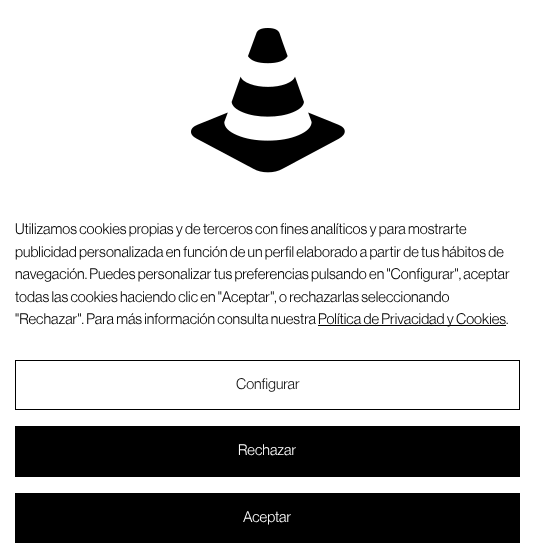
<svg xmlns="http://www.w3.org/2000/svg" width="535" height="558">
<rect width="100%" height="100%" fill="#fff"/>
<image x="191" y="28" width="154" height="145" href="media/1.png"/>
<text x="15" y="234" style="font-family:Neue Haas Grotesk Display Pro;font-size:15px;font-weight:300;fill:#000">Utilizamos cookies propias y de terceros con fines analíticos y para mostrarte</text>
<text x="15" y="257" style="font-family:Neue Haas Grotesk Display Pro;font-size:15px;font-weight:300;fill:#000">publicidad personalizada en función de un perfil elaborado a partir de tus hábitos de</text>
<text x="15" y="279" style="font-family:Neue Haas Grotesk Display Pro;font-size:15px;font-weight:300;fill:#000">navegación. Puedes personalizar tus preferencias pulsando en "Configurar", aceptar</text>
<text x="15" y="302" style="font-family:Neue Haas Grotesk Display Pro;font-size:15px;font-weight:300;fill:#000">todas las cookies haciendo clic en "Aceptar", o rechazarlas seleccionando</text>
<text x="15" y="324" style="font-family:Neue Haas Grotesk Display Pro;font-size:15px;font-weight:300;fill:#000">"Rechazar". Para más información consulta nuestra</text>
<rect x="318" y="325" width="188" height="1" fill="#000"/>
<text x="318" y="324" style="font-family:Neue Haas Grotesk Display Pro;font-size:15px;font-weight:300;fill:#000">Política de Privacidad y Cookies.</text>
<rect x="15.5" y="360.5" width="504" height="49" fill="none" stroke="#000"/>
<text x="236" y="389" style="font-family:Neue Haas Grotesk Display Pro;font-size:15px;font-weight:300;fill:#111">Configurar</text>
<rect x="15" y="426" width="505" height="51" fill="#000"/>
<text x="238" y="455" style="font-family:Neue Haas Grotesk Display Pro;font-size:15px;font-weight:300;fill:#fff">Rechazar</text>
<rect x="15" y="493" width="505" height="50" fill="#000"/>
<text x="243" y="522" style="font-family:Neue Haas Grotesk Display Pro;font-size:15px;font-weight:300;fill:#fff">Aceptar</text>
</svg>
